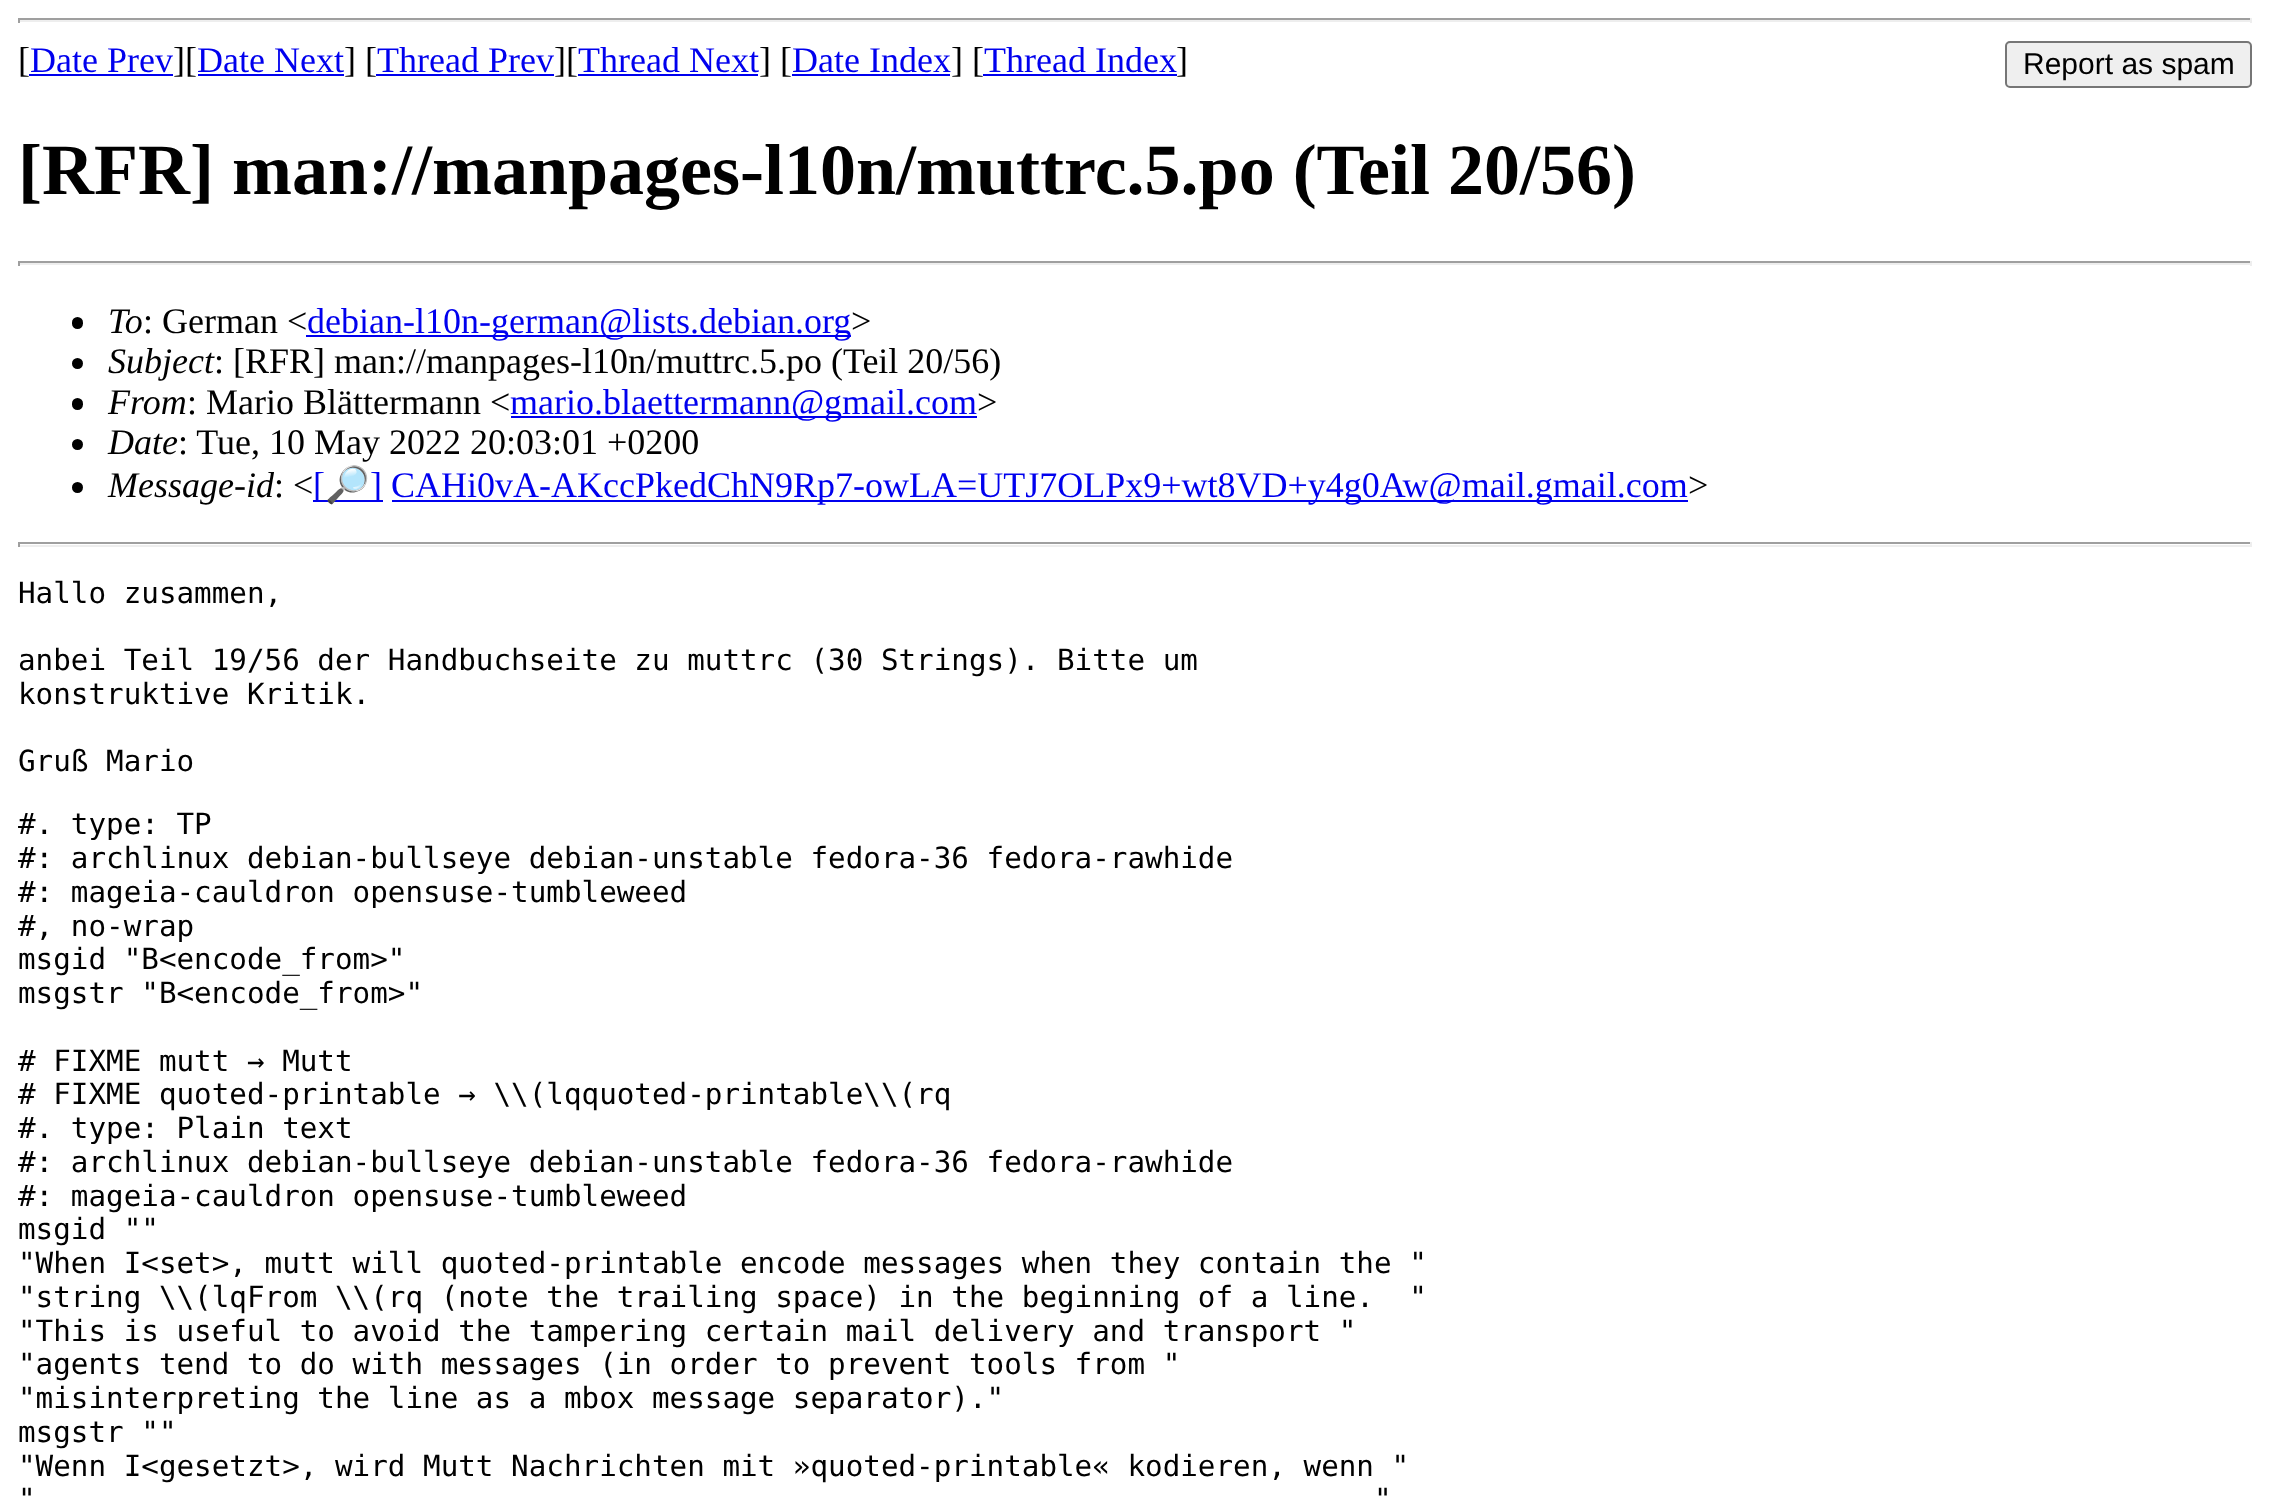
<svg xmlns="http://www.w3.org/2000/svg" width="2269" height="1502">
<rect width="100%" height="100%" fill="#fff"/>
<rect x="18" y="18" width="2234" height="2" fill="#9f9f9f"/>
<rect x="2250" y="18" width="2" height="5" fill="#eee"/>
<rect x="18" y="20" width="2234" height="2" fill="#eee"/>
<rect x="18" y="18" width="2" height="5" fill="#9f9f9f"/>
<text x="18" y="72" style="font-family:Liberation Serif;font-size:36px;fill:#000">[</text>
<text x="30" y="72" style="font-family:Liberation Serif;font-size:36px;fill:#00e">Date Prev</text>
<rect x="29" y="74" width="144" height="2" fill="#00e"/>
<text x="173" y="72" style="font-family:Liberation Serif;font-size:36px;fill:#000">][</text>
<text x="197" y="72" style="font-family:Liberation Serif;font-size:36px;fill:#00e">Date Next</text>
<rect x="198" y="74" width="146" height="2" fill="#00e"/>
<text x="344" y="72" style="font-family:Liberation Serif;font-size:36px;fill:#000">] [</text>
<text x="377" y="72" style="font-family:Liberation Serif;font-size:36px;fill:#00e">Thread Prev</text>
<rect x="376" y="74" width="178" height="2" fill="#00e"/>
<text x="554" y="72" style="font-family:Liberation Serif;font-size:36px;fill:#000">][</text>
<text x="578" y="72" style="font-family:Liberation Serif;font-size:36px;fill:#00e">Thread Next</text>
<rect x="578" y="74" width="180" height="2" fill="#00e"/>
<text x="759" y="72" style="font-family:Liberation Serif;font-size:36px;fill:#000">] [</text>
<text x="792" y="72" style="font-family:Liberation Serif;font-size:36px;fill:#00e">Date Index</text>
<rect x="792" y="74" width="158" height="2" fill="#00e"/>
<text x="951" y="72" style="font-family:Liberation Serif;font-size:36px;fill:#000">] [</text>
<text x="984" y="72" style="font-family:Liberation Serif;font-size:36px;fill:#00e">Thread Index</text>
<rect x="983" y="74" width="194" height="2" fill="#00e"/>
<text x="1176" y="72" style="font-family:Liberation Serif;font-size:36px;fill:#000">]</text>
<rect x="2006" y="42" width="245" height="45" rx="4" fill="#efefef" stroke="#767676" stroke-width="2"/>
<text x="2023" y="74" style="font-family:Liberation Sans;font-size:30px;fill:#000">Report as spam</text>
<text x="18" y="194" style="font-family:Liberation Serif;font-size:72px;font-weight:bold;fill:#000">[RFR] man://manpages-l10n/muttrc.5.po (Teil 20/56)</text>
<rect x="18" y="261" width="2234" height="2" fill="#9f9f9f"/>
<rect x="2250" y="261" width="2" height="5" fill="#eee"/>
<rect x="18" y="263" width="2234" height="2" fill="#eee"/>
<rect x="18" y="261" width="2" height="5" fill="#9f9f9f"/>
<rect x="72" y="317" width="11" height="12" rx="5.5" fill="#000"/>
<text x="108" y="333" style="font-family:Liberation Serif;font-size:36px;font-style:italic;fill:#000">To</text>
<text x="143" y="333" style="font-family:Liberation Serif;font-size:36px;fill:#000">: German &lt;</text>
<rect x="306" y="335" width="545" height="2" fill="#00e"/>
<text x="307" y="333" style="font-family:Liberation Serif;font-size:36px;fill:#00e">debian-l10n-german@lists.debian.org</text>
<text x="851" y="333" style="font-family:Liberation Serif;font-size:36px;fill:#000">&gt;</text>
<circle cx="77.5" cy="363.5" r="5.5" fill="#000"/>
<text x="108" y="373" style="font-family:Liberation Serif;font-size:36px;font-style:italic;fill:#000">Subject</text>
<text x="214" y="373" style="font-family:Liberation Serif;font-size:36px;fill:#000">: [RFR] man://manpages-l10n/muttrc.5.po (Teil 20/56)</text>
<rect x="72" y="398" width="11" height="12" rx="5.5" fill="#000"/>
<text x="108" y="414" style="font-family:Liberation Serif;font-size:36px;font-style:italic;fill:#000">From</text>
<text x="187" y="414" style="font-family:Liberation Serif;font-size:36px;fill:#000">: Mario Blättermann &lt;</text>
<rect x="511" y="416" width="466" height="2" fill="#00e"/>
<text x="510" y="414" style="font-family:Liberation Serif;font-size:36px;fill:#00e">mario.blaettermann@gmail.com</text>
<text x="977" y="414" style="font-family:Liberation Serif;font-size:36px;fill:#000">&gt;</text>
<circle cx="77.5" cy="444.5" r="5.5" fill="#000"/>
<text x="108" y="454" style="font-family:Liberation Serif;font-size:36px;font-style:italic;fill:#000">Date</text>
<text x="178" y="454" style="font-family:Liberation Serif;font-size:36px;fill:#000">: Tue, 10 May 2022 20:03:01 +0200</text>
<circle cx="77.5" cy="487.5" r="5.5" fill="#000"/>
<text x="108" y="497" style="font-family:Liberation Serif;font-size:36px;font-style:italic;fill:#000">Message-id</text>
<text x="274" y="497" style="font-family:Liberation Serif;font-size:36px;fill:#000">: &lt;</text>
<rect x="313" y="500" width="70" height="2" fill="#00e"/>
<text x="313" y="497" style="font-family:Liberation Serif;font-size:36px;fill:#00e">[</text>
<text x="325" y="497" style="font-family:Noto Color Emoji;font-size:36px;fill:#00e">🔎</text>
<text x="370" y="497" style="font-family:Liberation Serif;font-size:36px;fill:#00e">]</text>
<rect x="392" y="500" width="1296" height="2" fill="#00e"/>
<text x="391" y="497" style="font-family:Liberation Serif;font-size:36px;fill:#00e">CAHi0vA-AKccPkedChN9Rp7-owLA=UTJ7OLPx9+wt8VD+y4g0Aw@mail.gmail.com</text>
<text x="1688" y="497" style="font-family:Liberation Serif;font-size:36px;fill:#000">&gt;</text>
<rect x="18" y="542" width="2234" height="2" fill="#9f9f9f"/>
<rect x="2250" y="542" width="2" height="5" fill="#eee"/>
<rect x="18" y="545" width="2234" height="2" fill="#eee"/>
<rect x="18" y="542" width="2" height="5" fill="#9f9f9f"/>
<text x="18" y="603" style="font-family:DejaVu Sans Mono;font-size:29.25px;fill:#000">Hallo zusammen,</text>
<text x="18" y="670" style="font-family:DejaVu Sans Mono;font-size:29.25px;fill:#000">anbei Teil 19/56 der Handbuchseite zu muttrc (30 Strings). Bitte um</text>
<text x="18" y="704" style="font-family:DejaVu Sans Mono;font-size:29.25px;fill:#000">konstruktive Kritik.</text>
<text x="18" y="771" style="font-family:DejaVu Sans Mono;font-size:29.25px;fill:#000">Gruß Mario</text>
<text x="18" y="834" style="font-family:DejaVu Sans Mono;font-size:29.25px;fill:#000">#. type: TP</text>
<text x="18" y="868" style="font-family:DejaVu Sans Mono;font-size:29.25px;fill:#000">#: archlinux debian-bullseye debian-unstable fedora-36 fedora-rawhide</text>
<text x="18" y="902" style="font-family:DejaVu Sans Mono;font-size:29.25px;fill:#000">#: mageia-cauldron opensuse-tumbleweed</text>
<text x="18" y="936" style="font-family:DejaVu Sans Mono;font-size:29.25px;fill:#000">#, no-wrap</text>
<text x="18" y="969" style="font-family:DejaVu Sans Mono;font-size:29.25px;fill:#000">msgid "B&lt;encode_from&gt;"</text>
<text x="18" y="1003" style="font-family:DejaVu Sans Mono;font-size:29.25px;fill:#000">msgstr "B&lt;encode_from&gt;"</text>
<text x="18" y="1071" style="font-family:DejaVu Sans Mono;font-size:29.25px;fill:#000"># FIXME mutt → Mutt</text>
<text x="18" y="1104" style="font-family:DejaVu Sans Mono;font-size:29.25px;fill:#000"># FIXME quoted-printable → \\(lqquoted-printable\\(rq</text>
<text x="18" y="1138" style="font-family:DejaVu Sans Mono;font-size:29.25px;fill:#000">#. type: Plain text</text>
<text x="18" y="1172" style="font-family:DejaVu Sans Mono;font-size:29.25px;fill:#000">#: archlinux debian-bullseye debian-unstable fedora-36 fedora-rawhide</text>
<text x="18" y="1206" style="font-family:DejaVu Sans Mono;font-size:29.25px;fill:#000">#: mageia-cauldron opensuse-tumbleweed</text>
<text x="18" y="1239" style="font-family:DejaVu Sans Mono;font-size:29.25px;fill:#000">msgid ""</text>
<text x="18" y="1273" style="font-family:DejaVu Sans Mono;font-size:29.25px;fill:#000">"When I&lt;set&gt;, mutt will quoted-printable encode messages when they contain the "</text>
<text x="18" y="1307" style="font-family:DejaVu Sans Mono;font-size:29.25px;fill:#000" xml:space="preserve">"string \\(lqFrom \\(rq (note the trailing space) in the beginning of a line.  "</text>
<text x="18" y="1341" style="font-family:DejaVu Sans Mono;font-size:29.25px;fill:#000">"This is useful to avoid the tampering certain mail delivery and transport "</text>
<text x="18" y="1374" style="font-family:DejaVu Sans Mono;font-size:29.25px;fill:#000">"agents tend to do with messages (in order to prevent tools from "</text>
<text x="18" y="1408" style="font-family:DejaVu Sans Mono;font-size:29.25px;fill:#000">"misinterpreting the line as a mbox message separator)."</text>
<text x="18" y="1442" style="font-family:DejaVu Sans Mono;font-size:29.25px;fill:#000">msgstr ""</text>
<text x="18" y="1476" style="font-family:DejaVu Sans Mono;font-size:29.25px;fill:#000">"Wenn I&lt;gesetzt&gt;, wird Mutt Nachrichten mit »quoted-printable« kodieren, wenn "</text>
<text x="18" y="1509" style="font-family:DejaVu Sans Mono;font-size:29.25px;fill:#000">"</text>
<text x="1374" y="1509" style="font-family:DejaVu Sans Mono;font-size:29.25px;fill:#000">"</text>
</svg>
